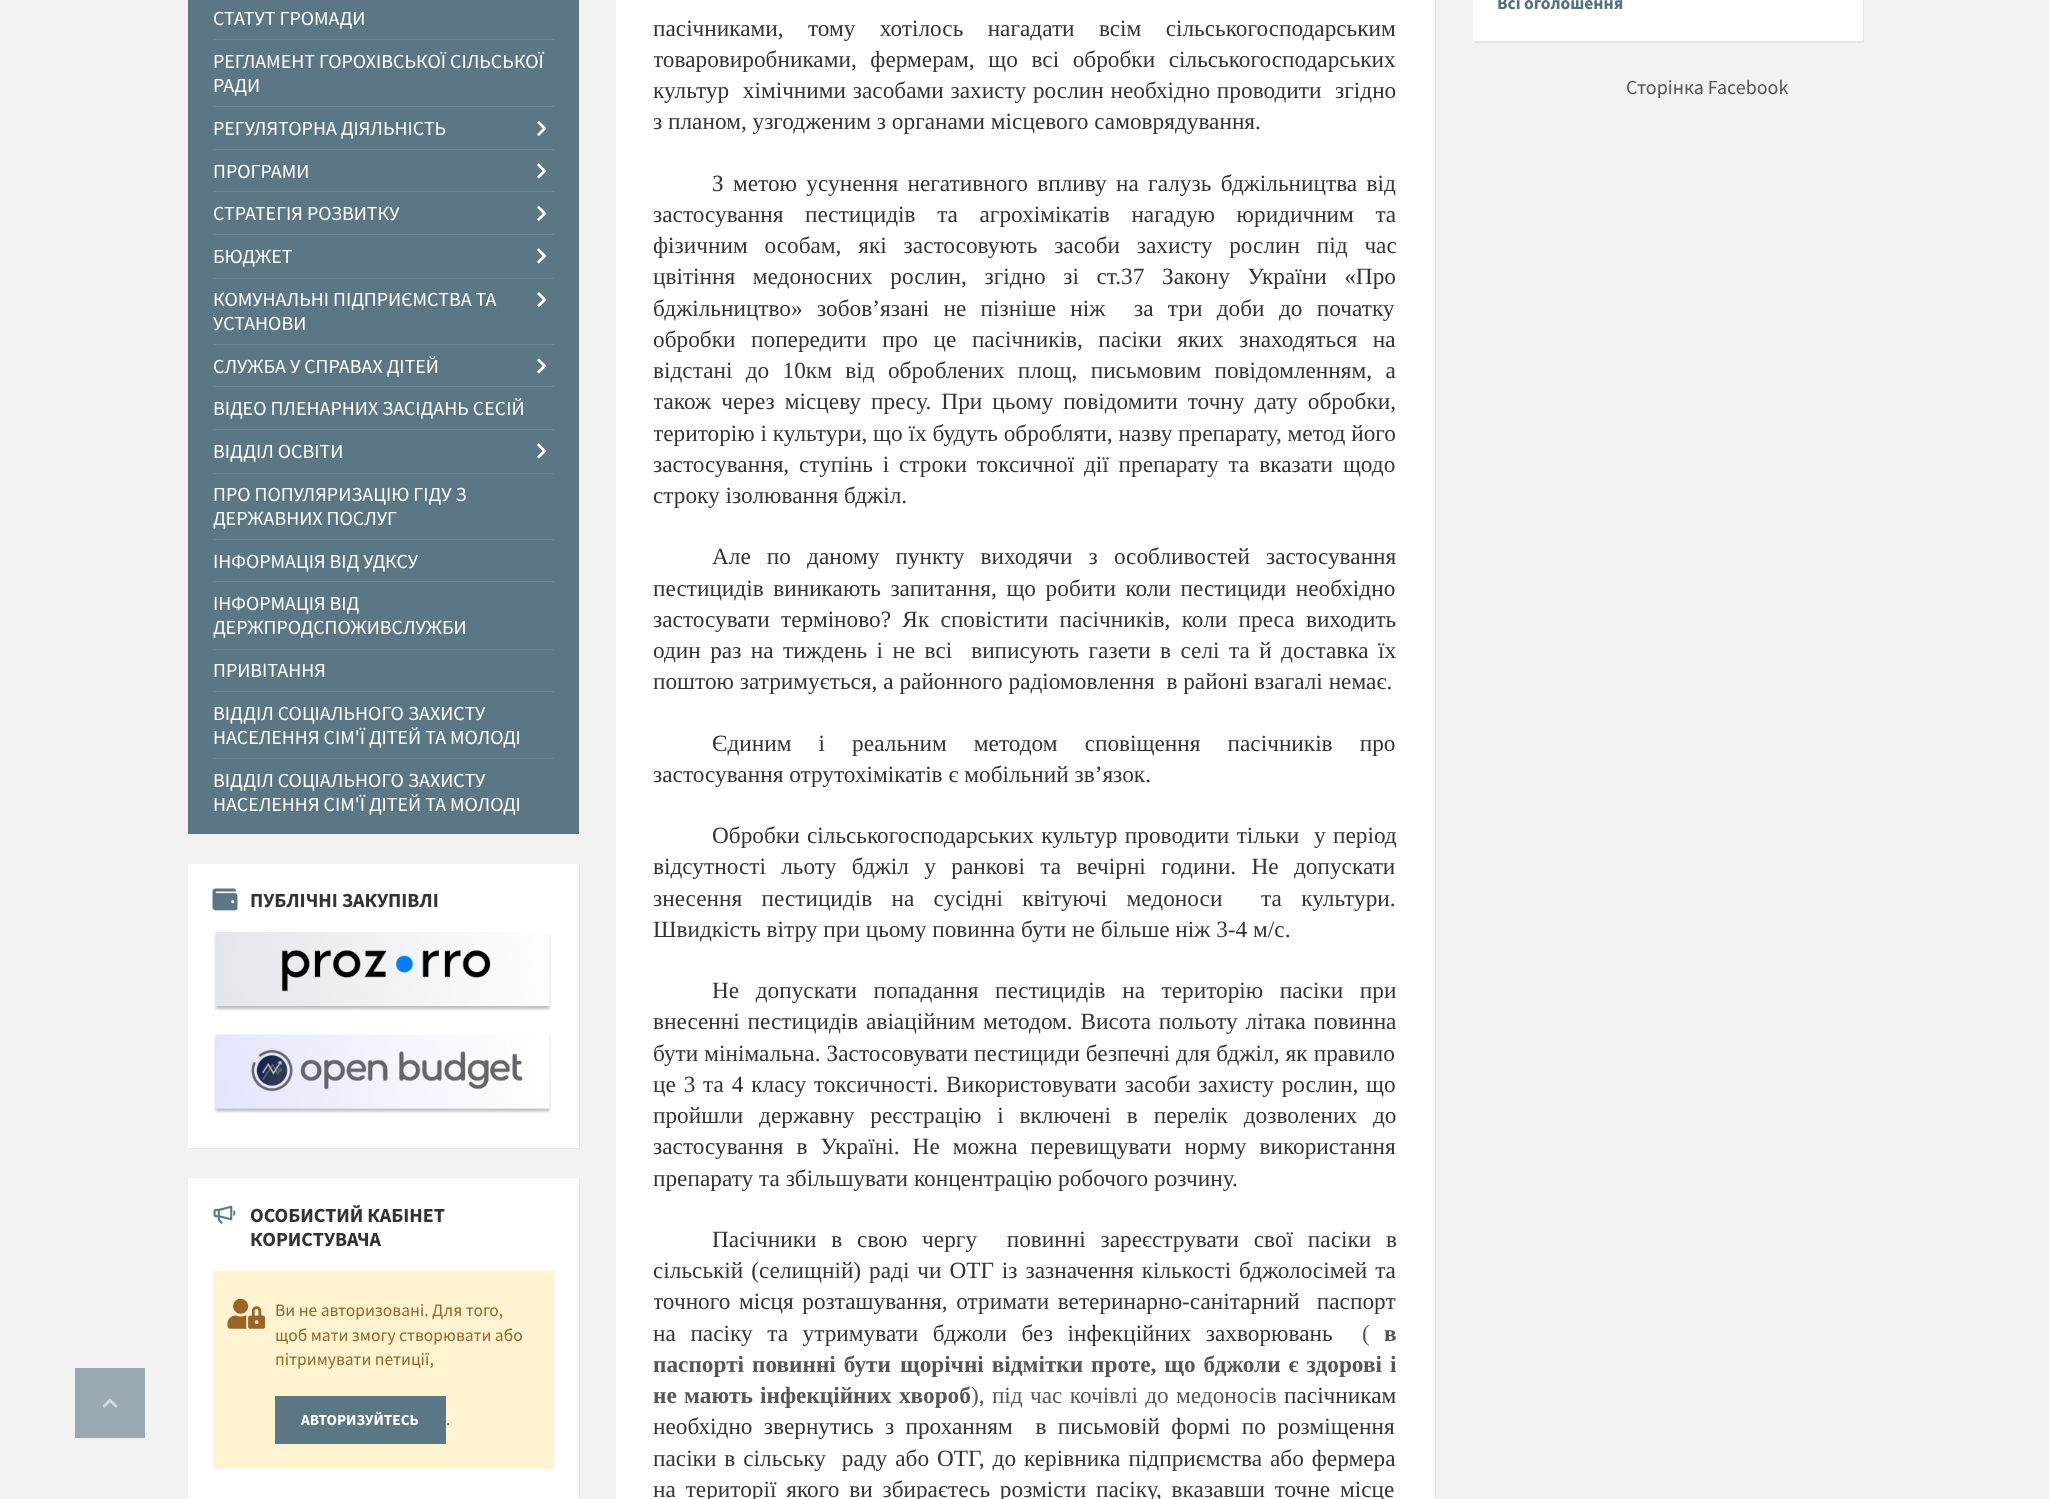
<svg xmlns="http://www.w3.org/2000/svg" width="2049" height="1499">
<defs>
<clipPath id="clip1"><rect x="654" width="744" height="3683"/></clipPath>
</defs>
<rect width="100%" height="100%" fill="#f2f2f2"/>
<rect x="75" y="1368" width="70" height="70" fill="#9aaab2"/>
<image x="103" y="1399" width="15" height="9" href="media/1.png"/>
<rect x="188" width="391" height="834" fill="#5b7684"/>
<text x="213" y="25" style="font-family:Source Sans Pro;font-size:20px;fill:#fff">СТАТУТ ГРОМАДИ</text>
<rect x="213" y="39" width="341" height="1" fill="#6b8490"/>
<text x="213" y="68" style="font-family:Source Sans Pro;font-size:20px;fill:#fff">РЕГЛАМЕНТ ГОРОХІВСЬКОЇ СІЛЬСЬКОЇ</text>
<text x="213" y="92" style="font-family:Source Sans Pro;font-size:20px;fill:#fff">РАДИ</text>
<rect x="213" y="106" width="341" height="1" fill="#6b8490"/>
<text x="213" y="135" style="font-family:Source Sans Pro;font-size:20px;fill:#fff">РЕГУЛЯТОРНА ДІЯЛЬНІСТЬ</text>
<image x="537" y="121" width="10" height="15" href="media/2.png"/>
<rect x="213" y="149" width="341" height="1" fill="#6b8490"/>
<text x="213" y="178" style="font-family:Source Sans Pro;font-size:20px;fill:#fff">ПРОГРАМИ</text>
<image x="537" y="163" width="10" height="16" href="media/3.png"/>
<rect x="213" y="191" width="341" height="1" fill="#6b8490"/>
<text x="213" y="220" style="font-family:Source Sans Pro;font-size:20px;fill:#fff">СТРАТЕГІЯ РОЗВИТКУ</text>
<image x="537" y="206" width="10" height="15" href="media/2.png"/>
<rect x="213" y="234" width="341" height="1" fill="#6b8490"/>
<text x="213" y="263" style="font-family:Source Sans Pro;font-size:20px;fill:#fff">БЮДЖЕТ</text>
<image x="537" y="248" width="10" height="16" href="media/3.png"/>
<rect x="213" y="278" width="341" height="1" fill="#6b8490"/>
<text x="213" y="306" style="font-family:Source Sans Pro;font-size:20px;fill:#fff">КОМУНАЛЬНІ ПІДПРИЄМСТВА ТА</text>
<image x="537" y="292" width="10" height="16" href="media/4.png"/>
<text x="213" y="330" style="font-family:Source Sans Pro;font-size:20px;fill:#fff">УСТАНОВИ</text>
<rect x="213" y="344" width="341" height="1" fill="#6b8490"/>
<text x="213" y="373" style="font-family:Source Sans Pro;font-size:20px;fill:#fff">СЛУЖБА У СПРАВАХ ДІТЕЙ</text>
<image x="537" y="358" width="10" height="16" href="media/3.png"/>
<rect x="213" y="386" width="341" height="1" fill="#6b8490"/>
<text x="213" y="415" style="font-family:Source Sans Pro;font-size:20px;fill:#fff">ВІДЕО ПЛЕНАРНИХ ЗАСІДАНЬ СЕСІЙ</text>
<rect x="213" y="429" width="341" height="1" fill="#6b8490"/>
<text x="213" y="458" style="font-family:Source Sans Pro;font-size:20px;fill:#fff">ВІДДІЛ ОСВІТИ</text>
<image x="537" y="443" width="10" height="16" href="media/3.png"/>
<rect x="213" y="473" width="341" height="1" fill="#6b8490"/>
<text x="213" y="501" style="font-family:Source Sans Pro;font-size:20px;fill:#fff">ПРО ПОПУЛЯРИЗАЦІЮ ГІДУ З</text>
<text x="213" y="525" style="font-family:Source Sans Pro;font-size:20px;fill:#fff">ДЕРЖАВНИХ ПОСЛУГ</text>
<rect x="213" y="539" width="341" height="1" fill="#6b8490"/>
<text x="213" y="568" style="font-family:Source Sans Pro;font-size:20px;fill:#fff">ІНФОРМАЦІЯ ВІД УДКСУ</text>
<rect x="213" y="581" width="341" height="1" fill="#6b8490"/>
<text x="213" y="610" style="font-family:Source Sans Pro;font-size:20px;fill:#fff">ІНФОРМАЦІЯ ВІД</text>
<text x="213" y="634" style="font-family:Source Sans Pro;font-size:20px;fill:#fff">ДЕРЖПРОДСПОЖИВСЛУЖБИ</text>
<rect x="213" y="649" width="341" height="1" fill="#6b8490"/>
<text x="213" y="677" style="font-family:Source Sans Pro;font-size:20px;fill:#fff">ПРИВІТАННЯ</text>
<rect x="213" y="691" width="341" height="1" fill="#6b8490"/>
<text x="213" y="720" style="font-family:Source Sans Pro;font-size:20px;fill:#fff">ВІДДІЛ СОЦІАЛЬНОГО ЗАХИСТУ</text>
<text x="213" y="744" style="font-family:Source Sans Pro;font-size:20px;fill:#fff">НАСЕЛЕННЯ СІМ'Ї ДІТЕЙ ТА МОЛОДІ</text>
<rect x="213" y="758" width="341" height="1" fill="#6b8490"/>
<text x="213" y="787" style="font-family:Source Sans Pro;font-size:20px;fill:#fff">ВІДДІЛ СОЦІАЛЬНОГО ЗАХИСТУ</text>
<text x="213" y="811" style="font-family:Source Sans Pro;font-size:20px;fill:#fff">НАСЕЛЕННЯ СІМ'Ї ДІТЕЙ ТА МОЛОДІ</text>
<path d="M189 1148v1h391v-284h-1v283z" fill="#e6e6e6"/>
<rect x="188" y="864" width="391" height="284" fill="#fff"/>
<image x="212" y="888" width="26" height="23" href="media/5.png"/>
<text x="250" y="907" style="font-family:Source Sans Pro;font-size:20px;font-weight:bold;fill:#333">ПУБЛІЧНІ ЗАКУПІВЛІ</text>
<image x="214" y="932" width="337" height="79" href="media/6.png"/>
<image x="214" y="1034" width="337" height="79" href="media/7.png"/>
<path d="M189 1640v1h391v-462h-1v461z" fill="#e6e6e6"/>
<rect x="188" y="1178" width="391" height="321" fill="#fff"/>
<image x="213" y="1205" width="23" height="19" href="media/8.png"/>
<text x="250" y="1222" style="font-family:Source Sans Pro;font-size:20px;font-weight:bold;fill:#333">ОСОБИСТИЙ КАБІНЕТ</text>
<text x="250" y="1246" style="font-family:Source Sans Pro;font-size:20px;font-weight:bold;fill:#333">КОРИСТУВАЧА</text>
<rect x="213" y="1271" width="341" height="198" fill="#fff4cf"/>
<image x="227" y="1298" width="38" height="31" href="media/9.png"/>
<text x="275" y="1316" style="font-family:Source Sans Pro;font-size:17.5px;fill:#996426">Ви не авторизовані. Для того,</text>
<text x="275" y="1341" style="font-family:Source Sans Pro;font-size:17.5px;fill:#996426">щоб мати змогу створювати або</text>
<text x="275" y="1365" style="font-family:Source Sans Pro;font-size:17.5px;fill:#996426">пітримувати петиції,</text>
<rect x="275" y="1396" width="171" height="48" fill="#5b7684"/>
<text x="301" y="1425" style="font-family:Source Sans Pro;font-size:15.25px;font-weight:bold;fill:#fff">АВТОРИЗУЙТЕСЬ</text>
<text x="446" y="1425" style="font-family:Source Sans Pro;font-size:17.5px;fill:#996426">.</text>
<path d="M618 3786v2h818v-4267h-1v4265z" fill="#e6e6e6"/>
<rect x="616" width="819" height="1499" fill="#fff"/>
<text x="653" y="36" word-spacing="18.5" style="font-family:Liberation Serif;font-size:23.3px;fill:#333">пасічниками, тому хотілось нагадати всім сільськогосподарським</text>
<g clip-path="url(#clip1)">
<text x="653" y="67" word-spacing="7.75" style="font-family:Liberation Serif;font-size:23.3px;fill:#333">товаровиробниками, фермерам, що всі обробки сільськогосподарських</text>
</g>
<text x="653" y="98" word-spacing="1" style="font-family:Liberation Serif;font-size:23.3px;fill:#333" xml:space="preserve">культур  хімічними засобами захисту рослин необхідно проводити  згідно</text>
<text x="653" y="129" style="font-family:Liberation Serif;font-size:23.3px;fill:#333">з планом, узгодженим з органами місцевого самоврядування.</text>
<text x="712" y="191" word-spacing="3.5" style="font-family:Liberation Serif;font-size:23.3px;fill:#333">З метою усунення негативного впливу на галузь бджільництва від</text>
<text x="653" y="222" word-spacing="15.75" style="font-family:Liberation Serif;font-size:23.3px;fill:#333">застосування пестицидів та агрохімікатів нагадую юридичним та</text>
<text x="653" y="253" word-spacing="11" style="font-family:Liberation Serif;font-size:23.3px;fill:#333">фізичним особам, які застосовують засоби захисту рослин під час</text>
<text x="653" y="284" word-spacing="11.75" style="font-family:Liberation Serif;font-size:23.3px;fill:#333">цвітіння медоносних рослин, згідно зі ст.37 Закону України «Про</text>
<text x="653" y="316" word-spacing="8.5" style="font-family:Liberation Serif;font-size:23.3px;fill:#333" xml:space="preserve">бджільництво» зобов’язані не пізніше ніж  за три доби до початку</text>
<text x="653" y="347" word-spacing="9.75" style="font-family:Liberation Serif;font-size:23.3px;fill:#333">обробки попередити про це пасічників, пасіки яких знаходяться на</text>
<text x="653" y="378" word-spacing="7.5" style="font-family:Liberation Serif;font-size:23.3px;fill:#333">відстані до 10км від оброблених площ, письмовим повідомленням, а</text>
<g clip-path="url(#clip1)">
<text x="653" y="409" word-spacing="4.25" style="font-family:Liberation Serif;font-size:23.3px;fill:#333">також через місцеву пресу. При цьому повідомити точну дату обробки,</text>
<text x="653" y="441" style="font-family:Liberation Serif;font-size:23.3px;fill:#333">територію і культури, що їх будуть обробляти, назву препарату, метод його</text>
</g>
<text x="653" y="472" word-spacing="4" style="font-family:Liberation Serif;font-size:23.3px;fill:#333">застосування, ступінь і строки токсичної дії препарату та вказати щодо</text>
<text x="653" y="503" style="font-family:Liberation Serif;font-size:23.3px;fill:#333">строку ізолювання бджіл.</text>
<text x="712" y="564" word-spacing="10.25" style="font-family:Liberation Serif;font-size:23.3px;fill:#333">Але по даному пункту виходячи з особливостей застосування</text>
<text x="653" y="596" word-spacing="3.75" style="font-family:Liberation Serif;font-size:23.3px;fill:#333">пестицидів виникають запитання, що робити коли пестициди необхідно</text>
<text x="653" y="627" word-spacing="5.5" style="font-family:Liberation Serif;font-size:23.3px;fill:#333">застосувати терміново? Як сповістити пасічників, коли преса виходить</text>
<text x="653" y="658" word-spacing="3.6" style="font-family:Liberation Serif;font-size:23.3px;fill:#333" xml:space="preserve">один раз на тиждень і не всі  виписують газети в селі та й доставка їх</text>
<text x="653" y="689" style="font-family:Liberation Serif;font-size:23.3px;fill:#333" xml:space="preserve">поштою затримується, а районного радіомовлення  в районі взагалі немає.</text>
<text x="712" y="751" word-spacing="21.25" style="font-family:Liberation Serif;font-size:23.3px;fill:#333">Єдиним і реальним методом сповіщення пасічників про</text>
<text x="653" y="782" style="font-family:Liberation Serif;font-size:23.3px;fill:#333">застосування отрутохімікатів є мобільний зв’язок.</text>
<text x="712" y="843" word-spacing="1.5" style="font-family:Liberation Serif;font-size:23.3px;fill:#333" xml:space="preserve">Обробки сільськогосподарських культур проводити тільки  у період</text>
<text x="653" y="874" word-spacing="9.5" style="font-family:Liberation Serif;font-size:23.3px;fill:#333">відсутності льоту бджіл у ранкові та вечірні години. Не допускати</text>
<text x="653" y="906" word-spacing="13.5" style="font-family:Liberation Serif;font-size:23.3px;fill:#333" xml:space="preserve">знесення пестицидів на сусідні квітуючі медоноси  та культури.</text>
<text x="653" y="937" style="font-family:Liberation Serif;font-size:23.3px;fill:#333">Швидкість вітру при цьому повинна бути не більше ніж 3-4 м/с.</text>
<text x="712" y="998" word-spacing="10.75" style="font-family:Liberation Serif;font-size:23.3px;fill:#333">Не допускати попадання пестицидів на територію пасіки при</text>
<text x="653" y="1029" word-spacing="2" style="font-family:Liberation Serif;font-size:23.3px;fill:#333">внесенні пестицидів авіаційним методом. Висота польоту літака повинна</text>
<text x="653" y="1061" word-spacing="0.25" style="font-family:Liberation Serif;font-size:23.3px;fill:#333">бути мінімальна. Застосовувати пестициди безпечні для бджіл, як правило</text>
<text x="653" y="1092" word-spacing="2" style="font-family:Liberation Serif;font-size:23.3px;fill:#333">це 3 та 4 класу токсичності. Використовувати засоби захисту рослин, що</text>
<text x="653" y="1123" word-spacing="10" style="font-family:Liberation Serif;font-size:23.3px;fill:#333">пройшли державну реєстрацію і включені в перелік дозволених до</text>
<text x="653" y="1154" word-spacing="7.25" style="font-family:Liberation Serif;font-size:23.3px;fill:#333">застосування в Україні. Не можна перевищувати норму використання</text>
<text x="653" y="1186" style="font-family:Liberation Serif;font-size:23.3px;fill:#333">препарату та збільшувати концентрацію робочого розчину.</text>
<text x="712" y="1247" word-spacing="9" style="font-family:Liberation Serif;font-size:23.3px;fill:#333" xml:space="preserve">Пасічники в свою чергу  повинні зареєструвати свої пасіки в</text>
<text x="653" y="1278" word-spacing="2.1" style="font-family:Liberation Serif;font-size:23.3px;fill:#333">сільській (селищній) раді чи ОТГ із зазначення кількості бджолосімей та</text>
<g clip-path="url(#clip1)">
<text x="653" y="1309" word-spacing="2.75" style="font-family:Liberation Serif;font-size:23.3px;fill:#333" xml:space="preserve">точного місця розташування, отримати ветеринарно-санітарний  паспорт</text>
</g>
<text x="653" y="1341" word-spacing="8.75" style="font-family:Liberation Serif;font-size:23.3px;fill:#333">на пасіку та утримувати бджоли без інфекційних захворювань</text>
<text x="1362" y="1341" style="font-family:Liberation Serif;font-size:23.3px;fill:#565656">(</text>
<text x="1384" y="1341" style="font-family:Liberation Serif;font-size:23.3px;font-weight:bold;fill:#565656">в</text>
<text x="653" y="1372" word-spacing="2.1" style="font-family:Liberation Serif;font-size:23.3px;font-weight:bold;fill:#565656">паспорті повинні бути</text>
<text x="900" y="1372" word-spacing="2.1" style="font-family:Liberation Serif;font-size:23.3px;font-weight:bold;fill:#565656">щорічні відмітки проте, що бджоли є здорові і</text>
<text x="653" y="1403" word-spacing="1.5" style="font-family:Liberation Serif;font-size:23.3px;font-weight:bold;fill:#565656">не мають інфекційних хвороб</text>
<text x="971" y="1403" word-spacing="1.5" style="font-family:Liberation Serif;font-size:23.3px;fill:#565656">), під час кочівлі до медоносів</text>
<text x="1284" y="1403" style="font-family:Liberation Serif;font-size:23.3px;fill:#333">пасічникам</text>
<text x="653" y="1434" word-spacing="5.5" style="font-family:Liberation Serif;font-size:23.3px;fill:#333" xml:space="preserve">необхідно звернутись з проханням  в письмовій формі по розміщення</text>
<text x="653" y="1466" word-spacing="2.1" style="font-family:Liberation Serif;font-size:23.3px;fill:#333" xml:space="preserve">пасіки в сільську  раду або ОТГ, до керівника підприємства або фермера</text>
<text x="653" y="1497" word-spacing="4" style="font-family:Liberation Serif;font-size:23.3px;fill:#333">на території якого ви збираєтесь розмісти пасіку, вказавши точне місце</text>
<path d="M1474 41v2h390v-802h-2v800z" fill="#e6e6e6"/>
<rect x="1473" width="390" height="41" fill="#fff"/>
<text x="1497" y="9" style="font-family:Source Sans Pro;font-size:17.5px;font-weight:bold;fill:#56707d">Всі оголошення</text>
<text x="1626" y="94" style="font-family:Source Sans Pro;font-size:20px;fill:#565656">Сторінка Facebook</text>
</svg>
